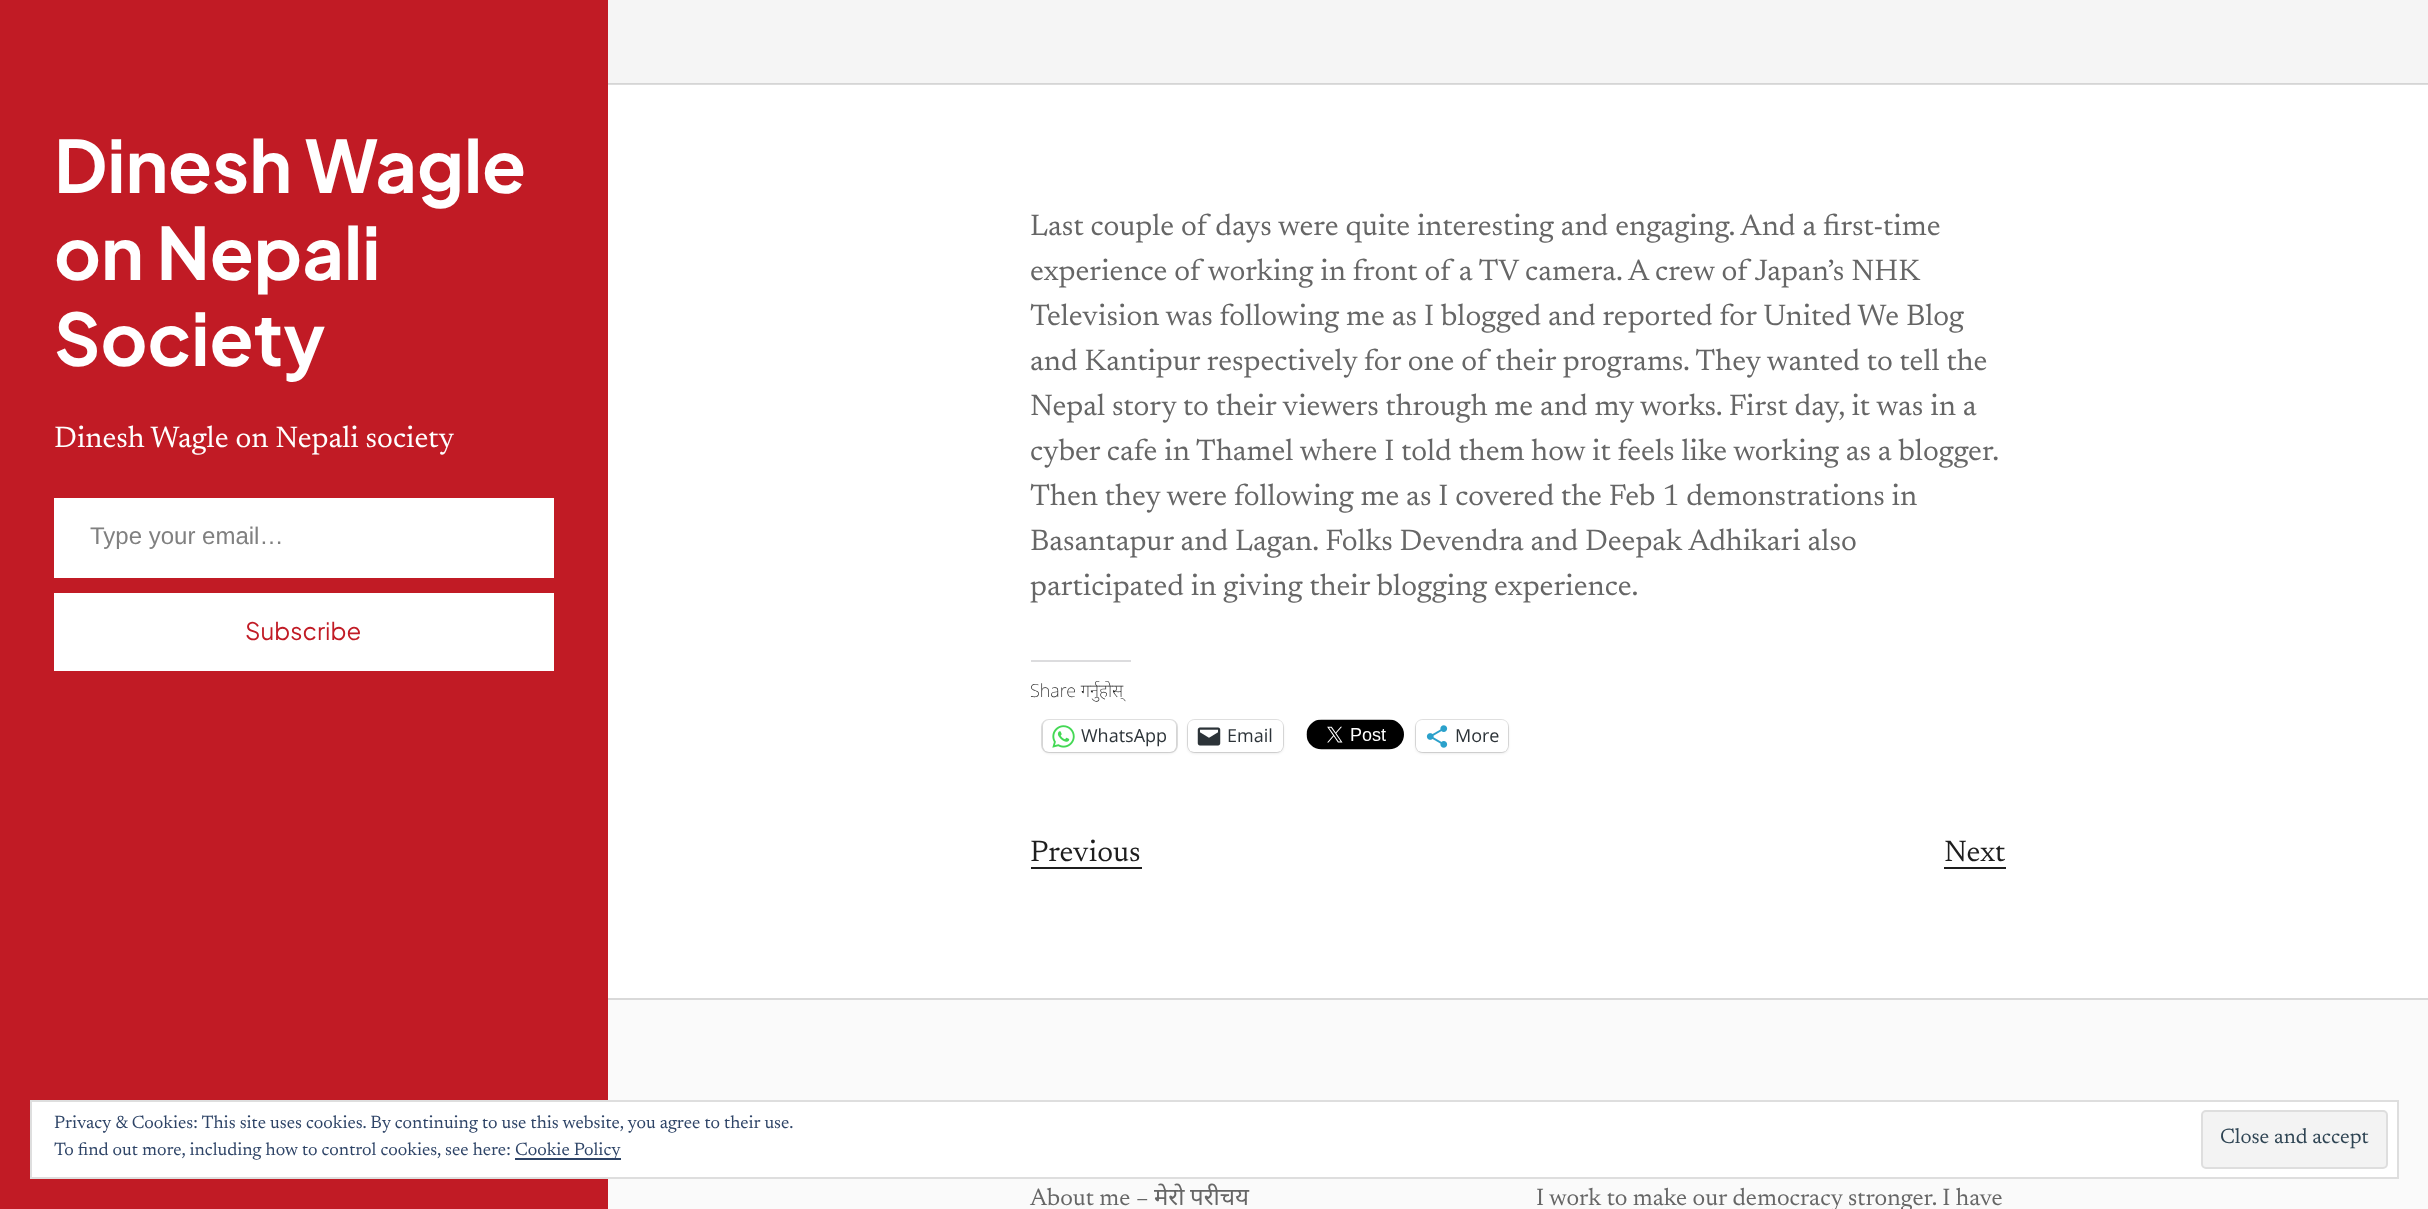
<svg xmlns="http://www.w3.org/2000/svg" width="2428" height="1209">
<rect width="100%" height="100%" fill="#fff"/>
<rect x="608" y="84" width="1820" height="1" fill="#ddd"/>
<rect width="608" height="1209" fill="#c11b25"/>
<text x="54" y="193" style="font-family:Plus Jakarta Sans;font-size:72px;font-weight:bold;fill:#fff">Dinesh Wagle</text>
<text x="54" y="280" style="font-family:Plus Jakarta Sans;font-size:72px;font-weight:bold;fill:#fff">on Nepali</text>
<text x="54" y="366" style="font-family:Plus Jakarta Sans;font-size:72px;font-weight:bold;fill:#fff">Society</text>
<text x="54" y="447" style="font-family:Newsreader;font-size:30px;fill:#fff">Dinesh Wagle on Nepali society</text>
<rect x="54" y="498" width="500" height="80" fill="#fff"/>
<text x="90" y="544" style="font-family:Liberation Sans;font-size:24px;fill:#808080">Type your email…</text>
<rect x="54" y="593" width="500" height="78" fill="#fff"/>
<text x="245" y="640" style="font-family:Plus Jakarta Sans;font-size:24px;fill:#c11b25">Subscribe</text>
<rect x="608" width="1820" height="83" fill="#f5f5f5"/>
<rect x="608" y="83" width="1820" height="1" fill="#d5d5d5"/>
<text x="1030" y="235" style="font-family:Newsreader;font-size:30px;fill:#666">Last couple of days were quite interesting and engaging. And a first-time</text>
<text x="1030" y="280" style="font-family:Newsreader;font-size:30px;fill:#666">experience of working in front of a TV camera. A crew of Japan’s NHK</text>
<text x="1030" y="325" style="font-family:Newsreader;font-size:30px;fill:#666">Television was following me as I blogged and reported for United We Blog</text>
<text x="1030" y="370" style="font-family:Newsreader;font-size:30px;fill:#666">and Kantipur respectively for one of their programs. They wanted to tell the</text>
<text x="1030" y="415" style="font-family:Newsreader;font-size:30px;fill:#666">Nepal story to their viewers through me and my works. First day, it was in a</text>
<text x="1030" y="460" style="font-family:Newsreader;font-size:30px;fill:#666">cyber cafe in Thamel where I told them how it feels like working as a blogger.</text>
<text x="1030" y="505" style="font-family:Newsreader;font-size:30px;fill:#666">Then they were following me as I covered the Feb 1 demonstrations in</text>
<text x="1030" y="550" style="font-family:Newsreader;font-size:30px;fill:#666">Basantapur and Lagan. Folks Devendra and Deepak Adhikari also</text>
<text x="1030" y="595" style="font-family:Newsreader;font-size:30px;fill:#666">participated in giving their blogging experience.</text>
<rect x="1031" y="660" width="100" height="2" fill="#dcdcde"/>
<text x="1030" y="697" style="font-family:Noto Sans;font-size:18px;font-weight:200;fill:#1e1e1e">Share गर्नुहोस्</text>
<rect x="1042" y="720" width="135" height="32" rx="7" fill="none" stroke="#e0e0e0" stroke-width="2"/>
<rect x="1043" y="722" width="133" height="31" rx="6" fill="#0000001f" filter="blur(1.5px)"/>
<rect x="1043" y="720" width="133" height="32" rx="6" fill="#fff"/>
<image x="1052" y="725" width="23" height="23" href="media/1.png"/>
<text x="1081" y="742" style="font-family:Open Sans;font-size:18px;fill:#2c3338">WhatsApp</text>
<rect x="1188" y="720" width="95" height="32" rx="7" fill="none" stroke="#e0e0e0" stroke-width="2"/>
<rect x="1188" y="722" width="95" height="31" rx="6" fill="#0000001f" filter="blur(1.5px)"/>
<rect x="1188" y="720" width="95" height="32" rx="6" fill="#fff"/>
<image x="1197" y="727" width="24" height="19" href="media/2.png"/>
<text x="1227" y="742" style="font-family:Open Sans;font-size:18px;fill:#2c3338">Email</text>
<image x="1306" y="719" width="98" height="31" href="media/3.png"/>
<rect x="1416" y="720" width="92" height="32" rx="7" fill="none" stroke="#e0e0e0" stroke-width="2"/>
<rect x="1416" y="722" width="92" height="31" rx="6" fill="#0000001f" filter="blur(1.5px)"/>
<rect x="1416" y="720" width="92" height="32" rx="6" fill="#fff"/>
<image x="1426" y="725" width="22" height="23" href="media/4.png"/>
<text x="1455" y="742" style="font-family:Open Sans;font-size:18px;fill:#2c3338">More</text>
<text x="1030" y="861" style="font-family:Newsreader;font-size:30px;fill:#1e1e1e">Previous</text>
<rect x="1031" y="867" width="111" height="2" fill="#1e1e1e"/>
<text x="1944" y="861" style="font-family:Newsreader;font-size:30px;fill:#1e1e1e">Next</text>
<rect x="1944" y="867" width="62" height="2" fill="#1e1e1e"/>
<rect x="608" y="1000" width="1820" height="209" fill="#fafafa"/>
<rect x="608" y="998" width="1820" height="2" fill="#d9d9d9"/>
<text x="1030" y="1205" style="font-family:Newsreader;font-size:24px;fill:#666">About me –</text>
<text x="1154" y="1205" style="font-family:Noto Sans;font-size:24px;fill:#666">मेरो</text>
<text x="1190" y="1205" style="font-family:Noto Sans;font-size:24px;fill:#666">परीचय</text>
<text x="1536" y="1205" style="font-family:Newsreader;font-size:24px;fill:#666">I work to make our democracy stronger. I have</text>
<rect x="31" y="1101" width="2367" height="77" fill="#fff" stroke="#dedede" stroke-width="2"/>
<text x="54" y="1128" style="font-family:Newsreader;font-size:18px;fill:#2e4467">Privacy &amp; Cookies: This site uses cookies. By continuing to use this website, you agree to their use.</text>
<rect x="2202" y="1111" width="185" height="57" rx="4" fill="#f3f3f3" stroke="#dedede" stroke-width="2"/>
<text x="2220" y="1143" style="font-family:Newsreader;font-size:21px;fill:#2e4453">Close and accept</text>
<text x="54" y="1155" style="font-family:Newsreader;font-size:18px;fill:#2e4467">To find out more, including how to control cookies, see here:</text>
<rect x="515" y="1158" width="106" height="2" fill="#2e4467"/>
<text x="515" y="1155" style="font-family:Newsreader;font-size:18px;fill:#2e4467">Cookie Policy</text>
</svg>
